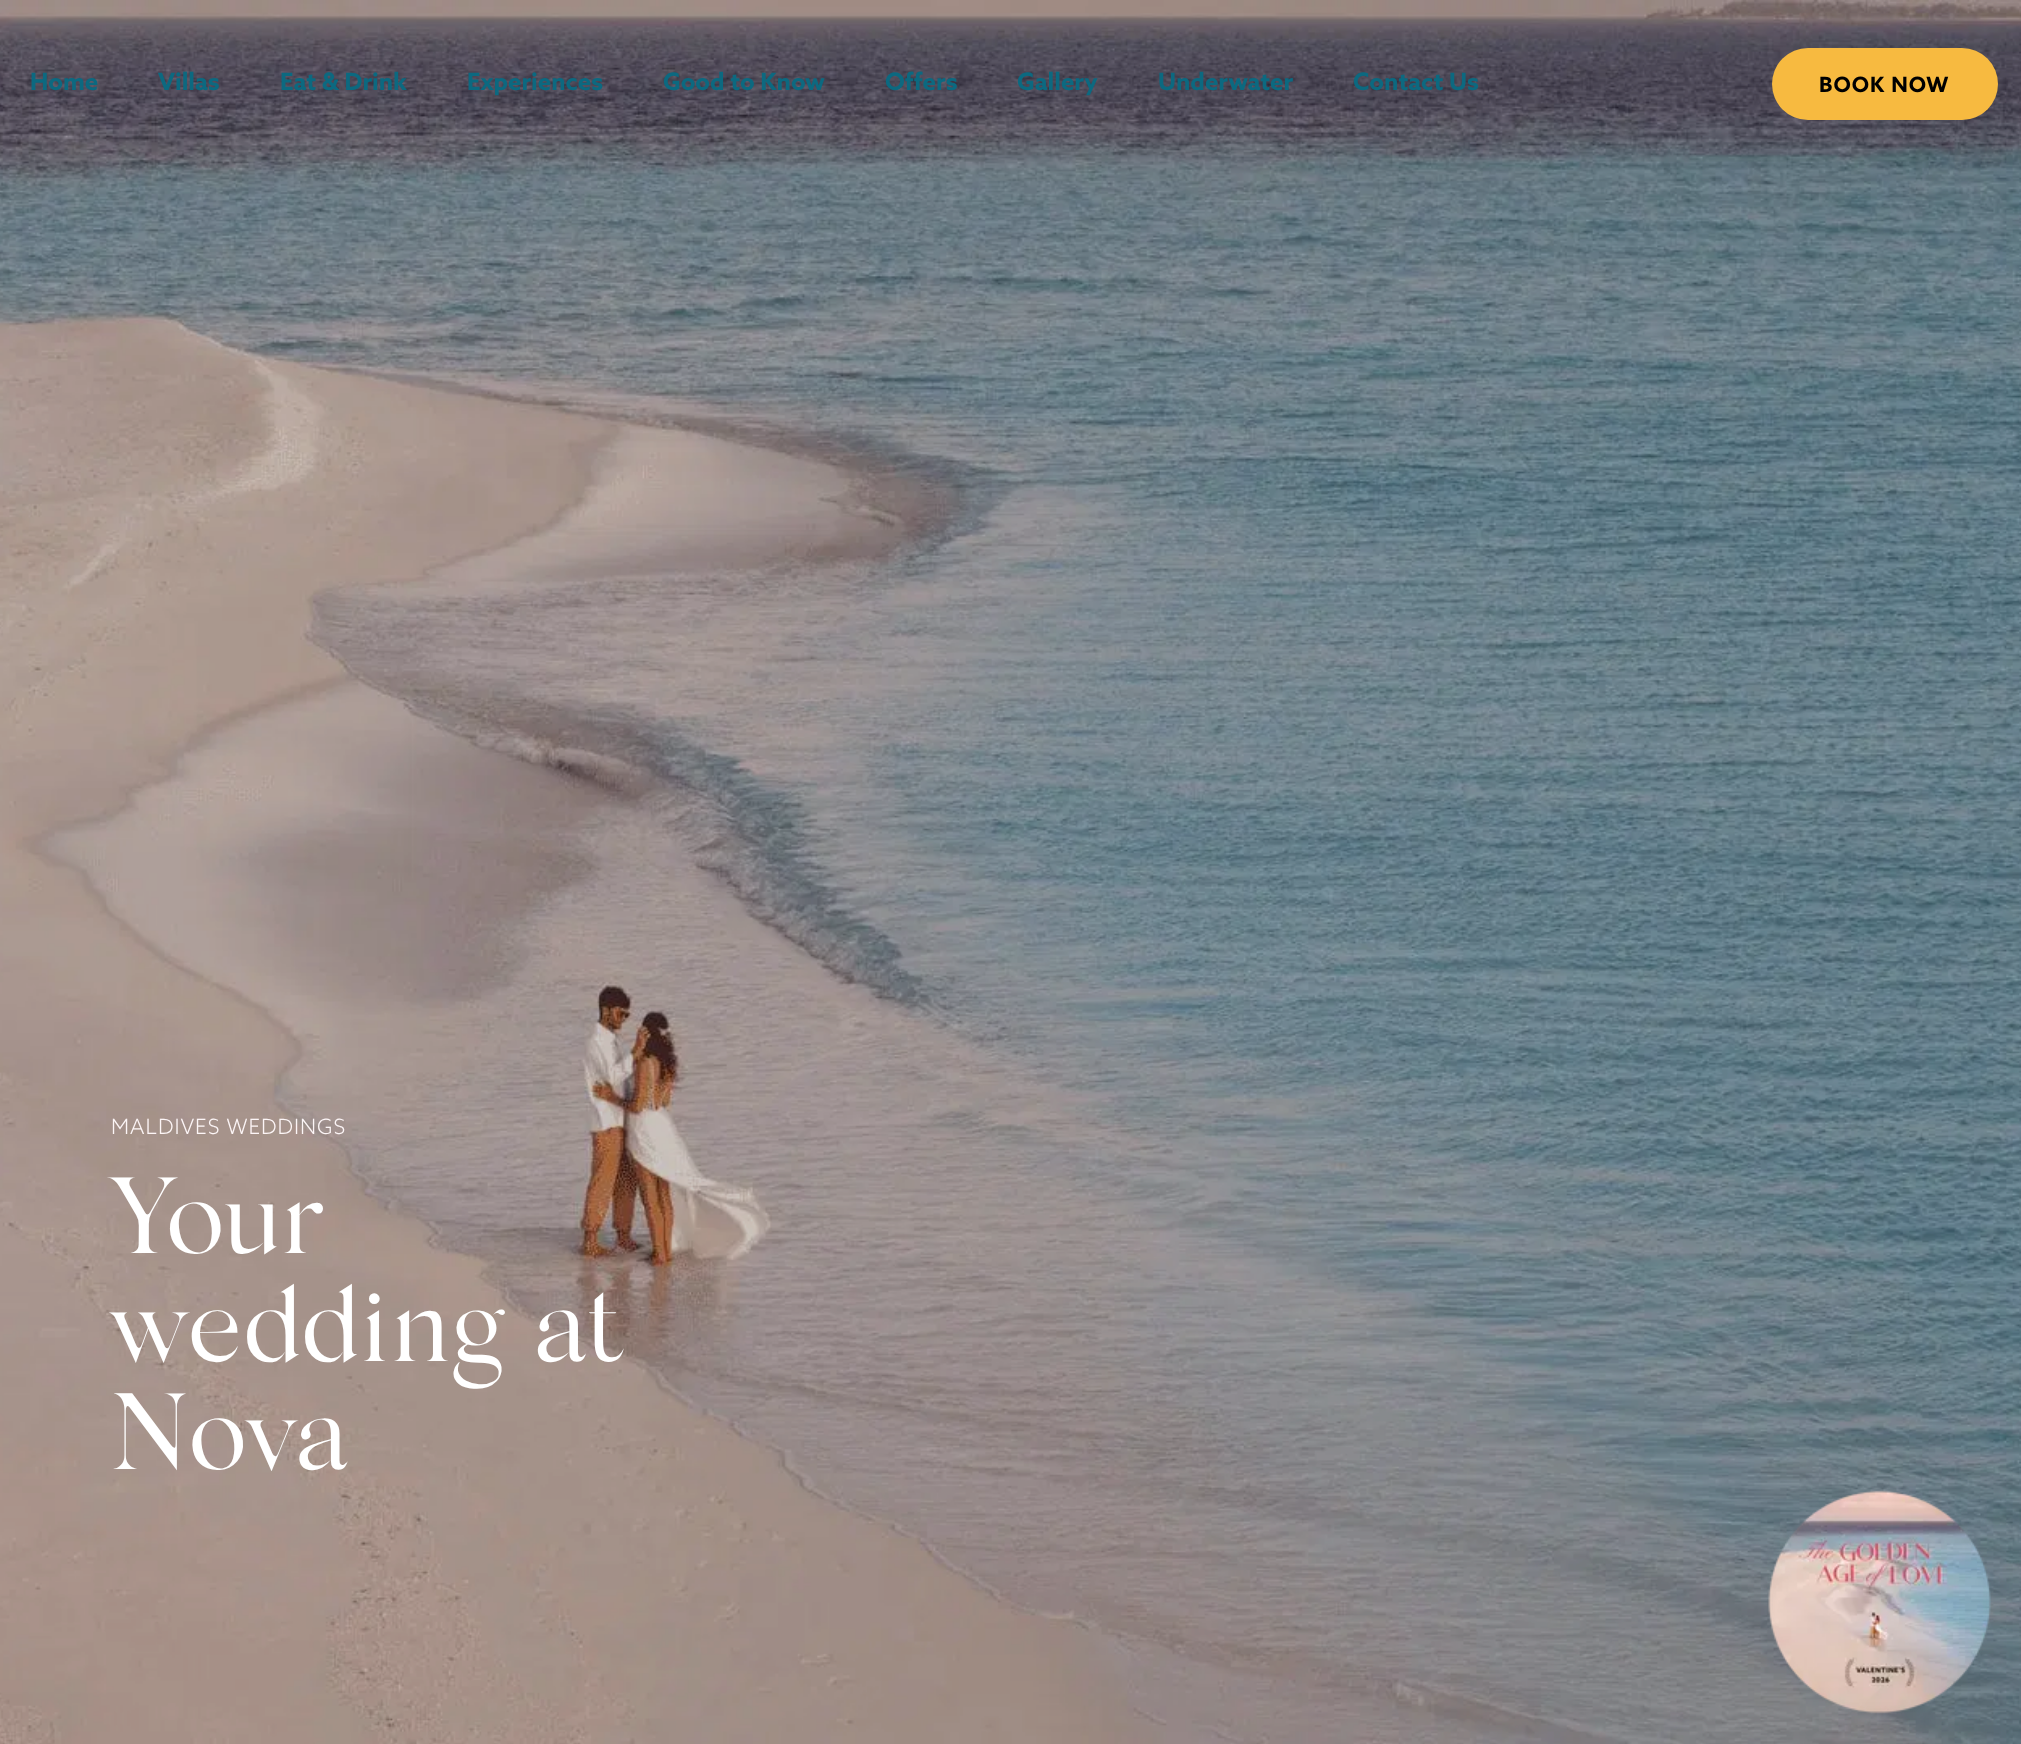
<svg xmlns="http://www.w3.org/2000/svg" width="2021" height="1744">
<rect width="100%" height="100%" fill="#fff"/>
<image x="0" y="0" width="2021" height="1744" href="media/1.png"/>
<text x="30" y="90" style="font-family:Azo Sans;font-size:24px;font-weight:bold;fill:#0c6980">Home</text>
<text x="158" y="90" style="font-family:Azo Sans;font-size:24px;font-weight:bold;fill:#0c6980">Villas</text>
<text x="280" y="90" style="font-family:Azo Sans;font-size:24px;font-weight:bold;fill:#0c6980">Eat &amp; Drink</text>
<text x="467" y="90" style="font-family:Azo Sans;font-size:24px;font-weight:bold;fill:#0c6980">Experiences</text>
<text x="663" y="90" style="font-family:Azo Sans;font-size:24px;font-weight:bold;fill:#0c6980">Good to Know</text>
<text x="885" y="90" style="font-family:Azo Sans;font-size:24px;font-weight:bold;fill:#0c6980">Offers</text>
<text x="1017" y="90" style="font-family:Azo Sans;font-size:24px;font-weight:bold;fill:#0c6980">Gallery</text>
<text x="1158" y="90" style="font-family:Azo Sans;font-size:24px;font-weight:bold;fill:#0c6980">Underwater</text>
<text x="1353" y="90" style="font-family:Azo Sans;font-size:24px;font-weight:bold;fill:#0c6980">Contact Us</text>
<rect x="1772" y="48" width="226" height="72" rx="36" fill="#f7ba40"/>
<text x="1819" y="92" style="font-family:Azo Sans;font-size:21px;font-weight:bold;letter-spacing:1px;fill:#000">BOOK NOW</text>
<text x="111" y="1134" style="font-family:Azo Sans;font-size:21px;font-weight:300;letter-spacing:1px;fill:#fdf6f7">MALDIVES WEDDINGS</text>
<text x="111" y="1253" style="font-family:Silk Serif;font-size:108px;fill:#fff">Your</text>
<text x="111" y="1361" style="font-family:Silk Serif;font-size:108px;fill:#fff">wedding at</text>
<text x="111" y="1469" style="font-family:Silk Serif;font-size:108px;fill:#fff">Nova</text>
<image x="1768" y="1490" width="223" height="224" href="media/2.png"/>
</svg>
